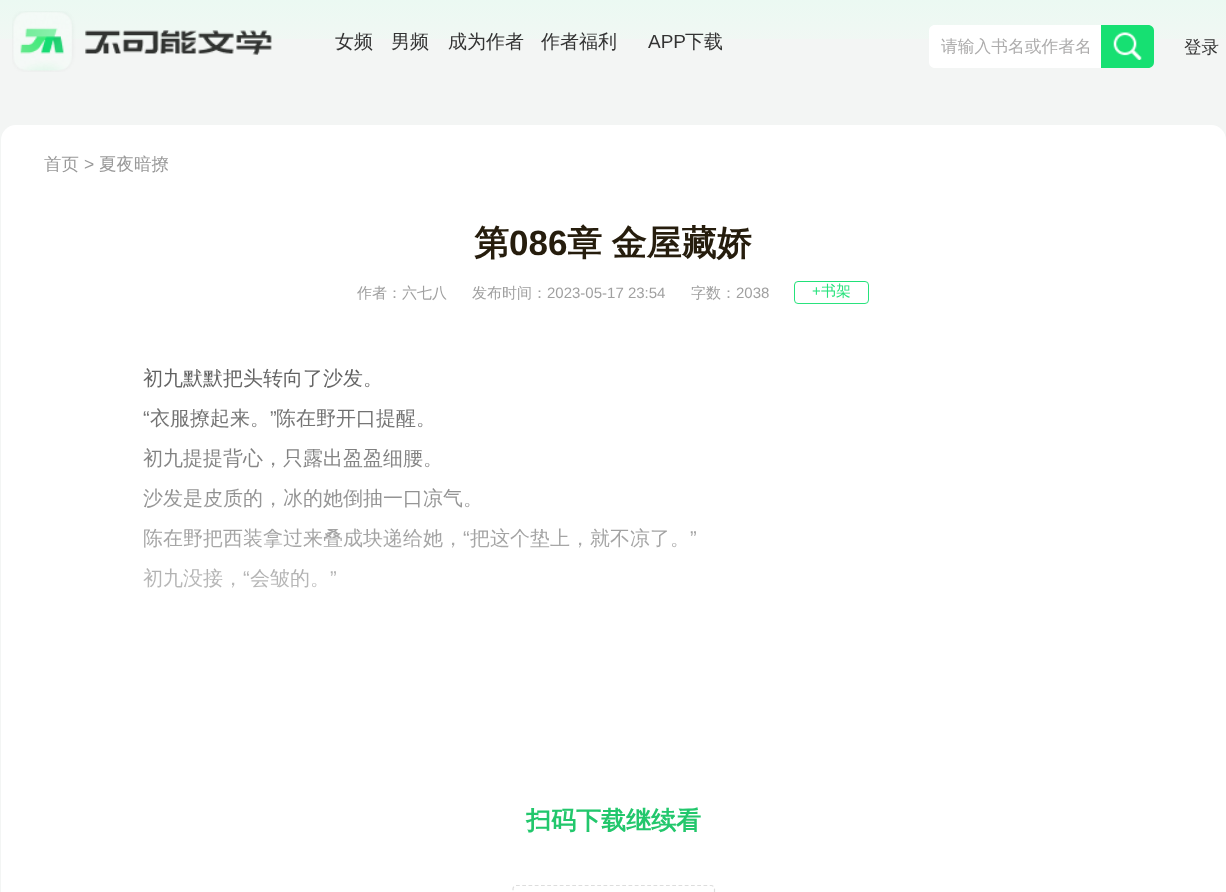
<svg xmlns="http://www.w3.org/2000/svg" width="1226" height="892">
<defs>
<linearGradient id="g1" gradientUnits="userSpaceOnUse" x1="613" y1="0" x2="613" y2="125"><stop offset="0" stop-color="#ebf9f2"/><stop offset="0.4" stop-color="#f2f7f4"/><stop offset="1" stop-color="#f3f5f4"/></linearGradient>
<linearGradient id="g2" gradientUnits="userSpaceOnUse" x1="614" y1="760" x2="614" y2="260"><stop offset="0" stop-color="#fff"/><stop offset="1" stop-color="#fff" stop-opacity="0"/></linearGradient>
</defs>
<rect width="100%" height="100%" fill="#f3f5f4"/>
<rect width="1226" height="39" fill="url(#g1)"/>
<image x="12" y="11" width="260" height="61" href="media/1.png"/>
<text x="335" y="48" style="font-family:WenQuanYi Zen Hei;font-size:19px;font-weight:500;fill:#333">女频</text>
<text x="391" y="48" style="font-family:WenQuanYi Zen Hei;font-size:19px;font-weight:500;fill:#333">男频</text>
<text x="448" y="48" style="font-family:WenQuanYi Zen Hei;font-size:19px;font-weight:500;fill:#333">成为作者</text>
<text x="541" y="48" style="font-family:WenQuanYi Zen Hei;font-size:19px;font-weight:500;fill:#333">作者福利</text>
<text x="648" y="48" style="font-family:Liberation Sans;font-size:19px;fill:#333">APP</text>
<text x="685" y="48" style="font-family:WenQuanYi Zen Hei;font-size:19px;font-weight:500;fill:#333">下载</text>
<path d="M935 25h166v43h-166c-3.5 0-6-2.5-6-6v-31c0-3.5 2.5-6 6-6z" fill="#fff"/>
<text x="941" y="52" style="font-family:WenQuanYi Zen Hei;font-size:16.75px;font-weight:500;fill:#adacac">请输入书名或作者名</text>
<path d="M1101 25h47c3.5 0 6 2.5 6 6v31c0 3.5-2.5 6-6 6h-47z" fill="#16e072"/>
<image x="1113" y="32" width="29" height="28" href="media/2.png"/>
<text x="1184" y="53" style="font-family:WenQuanYi Zen Hei;font-size:17.5px;font-weight:500;fill:#333">登录</text>
<rect x="1" y="125" width="1225" height="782" rx="15" fill="#fff"/>
<text x="44" y="170" style="font-family:WenQuanYi Zen Hei;font-size:17.5px;font-weight:500;fill:#999">首页</text>
<text x="84" y="170" style="font-family:Liberation Sans;font-size:17.5px;fill:#999">&gt;</text>
<text x="99" y="170" style="font-family:WenQuanYi Zen Hei;font-size:17.5px;font-weight:500;fill:#999">夏夜暗撩</text>
<text x="474" y="255" style="font-family:WenQuanYi Zen Hei;font-size:35px;font-weight:bold;fill:#261d0d">第</text>
<text x="509" y="255" style="font-family:Liberation Sans;font-size:35px;font-weight:bold;fill:#261d0d">086</text>
<text x="567" y="255" word-spacing="-1" style="font-family:WenQuanYi Zen Hei;font-size:35px;font-weight:bold;fill:#261d0d">章 金屋藏娇</text>
<text x="357" y="298" style="font-family:WenQuanYi Zen Hei;font-size:15px;font-weight:500;fill:#999">作者：六七八</text>
<text x="472" y="298" style="font-family:WenQuanYi Zen Hei;font-size:15px;font-weight:500;fill:#999">发布时间：</text>
<text x="547" y="298" style="font-family:Liberation Sans;font-size:15px;fill:#999">2023-05-17 23:54</text>
<text x="691" y="298" style="font-family:WenQuanYi Zen Hei;font-size:15px;font-weight:500;fill:#999">字数：</text>
<text x="736" y="298" style="font-family:Liberation Sans;font-size:15px;fill:#999">2038</text>
<rect x="794.5" y="281.5" width="74" height="22" rx="3.5" fill="none" stroke="#16e072"/>
<text x="812" y="296" style="font-family:Liberation Sans;font-size:15px;fill:#16e072">+</text>
<text x="821" y="296" style="font-family:WenQuanYi Zen Hei;font-size:15px;font-weight:500;fill:#16e072">书架</text>
<text x="143" y="385" style="font-family:WenQuanYi Zen Hei;font-size:20px;font-weight:500;fill:#333">初九默默把头转向了沙发。</text>
<text x="143" y="425" style="font-family:Liberation Sans;font-size:20px;fill:#333">“</text>
<text x="150" y="425" style="font-family:WenQuanYi Zen Hei;font-size:20px;font-weight:500;fill:#333">衣服撩起来。</text>
<text x="270" y="425" style="font-family:Liberation Sans;font-size:20px;fill:#333">”</text>
<text x="276" y="425" style="font-family:WenQuanYi Zen Hei;font-size:20px;font-weight:500;fill:#333">陈在野开口提醒。</text>
<text x="143" y="465" style="font-family:WenQuanYi Zen Hei;font-size:20px;font-weight:500;fill:#333">初九提提背心，只露出盈盈细腰。</text>
<text x="143" y="505" style="font-family:WenQuanYi Zen Hei;font-size:20px;font-weight:500;fill:#333">沙发是皮质的，冰的她倒抽一口凉气。</text>
<text x="143" y="545" style="font-family:WenQuanYi Zen Hei;font-size:20px;font-weight:500;fill:#333">陈在野把西装拿过来叠成块递给她，</text>
<text x="463" y="545" style="font-family:Liberation Sans;font-size:20px;fill:#333">“</text>
<text x="470" y="545" style="font-family:WenQuanYi Zen Hei;font-size:20px;font-weight:500;fill:#333">把这个垫上，就不凉了。</text>
<text x="690" y="545" style="font-family:Liberation Sans;font-size:20px;fill:#333">”</text>
<text x="143" y="585" style="font-family:WenQuanYi Zen Hei;font-size:20px;font-weight:500;fill:#333">初九没接，</text>
<text x="243" y="585" style="font-family:Liberation Sans;font-size:20px;fill:#333">“</text>
<text x="250" y="585" style="font-family:WenQuanYi Zen Hei;font-size:20px;font-weight:500;fill:#333">会皱的。</text>
<text x="330" y="585" style="font-family:Liberation Sans;font-size:20px;fill:#333">”</text>
<rect x="143" y="281" width="726" height="307" fill="url(#g2)"/>
<text x="526" y="829" style="font-family:WenQuanYi Zen Hei;font-size:25px;font-weight:bold;fill:#22c76c">扫码下载继续看</text>
<path d="M516 885.5h195c2 0 3.5 1.5 3.5 3.5v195c0 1.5-1.5 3-3.5 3h-195c-1.5 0-3-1.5-3-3v-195c0-2 1.5-3.5 3-3.5z" fill="none" stroke="#ddd" stroke-width="1.2" stroke-dasharray="3.75 2.5"/>
</svg>
